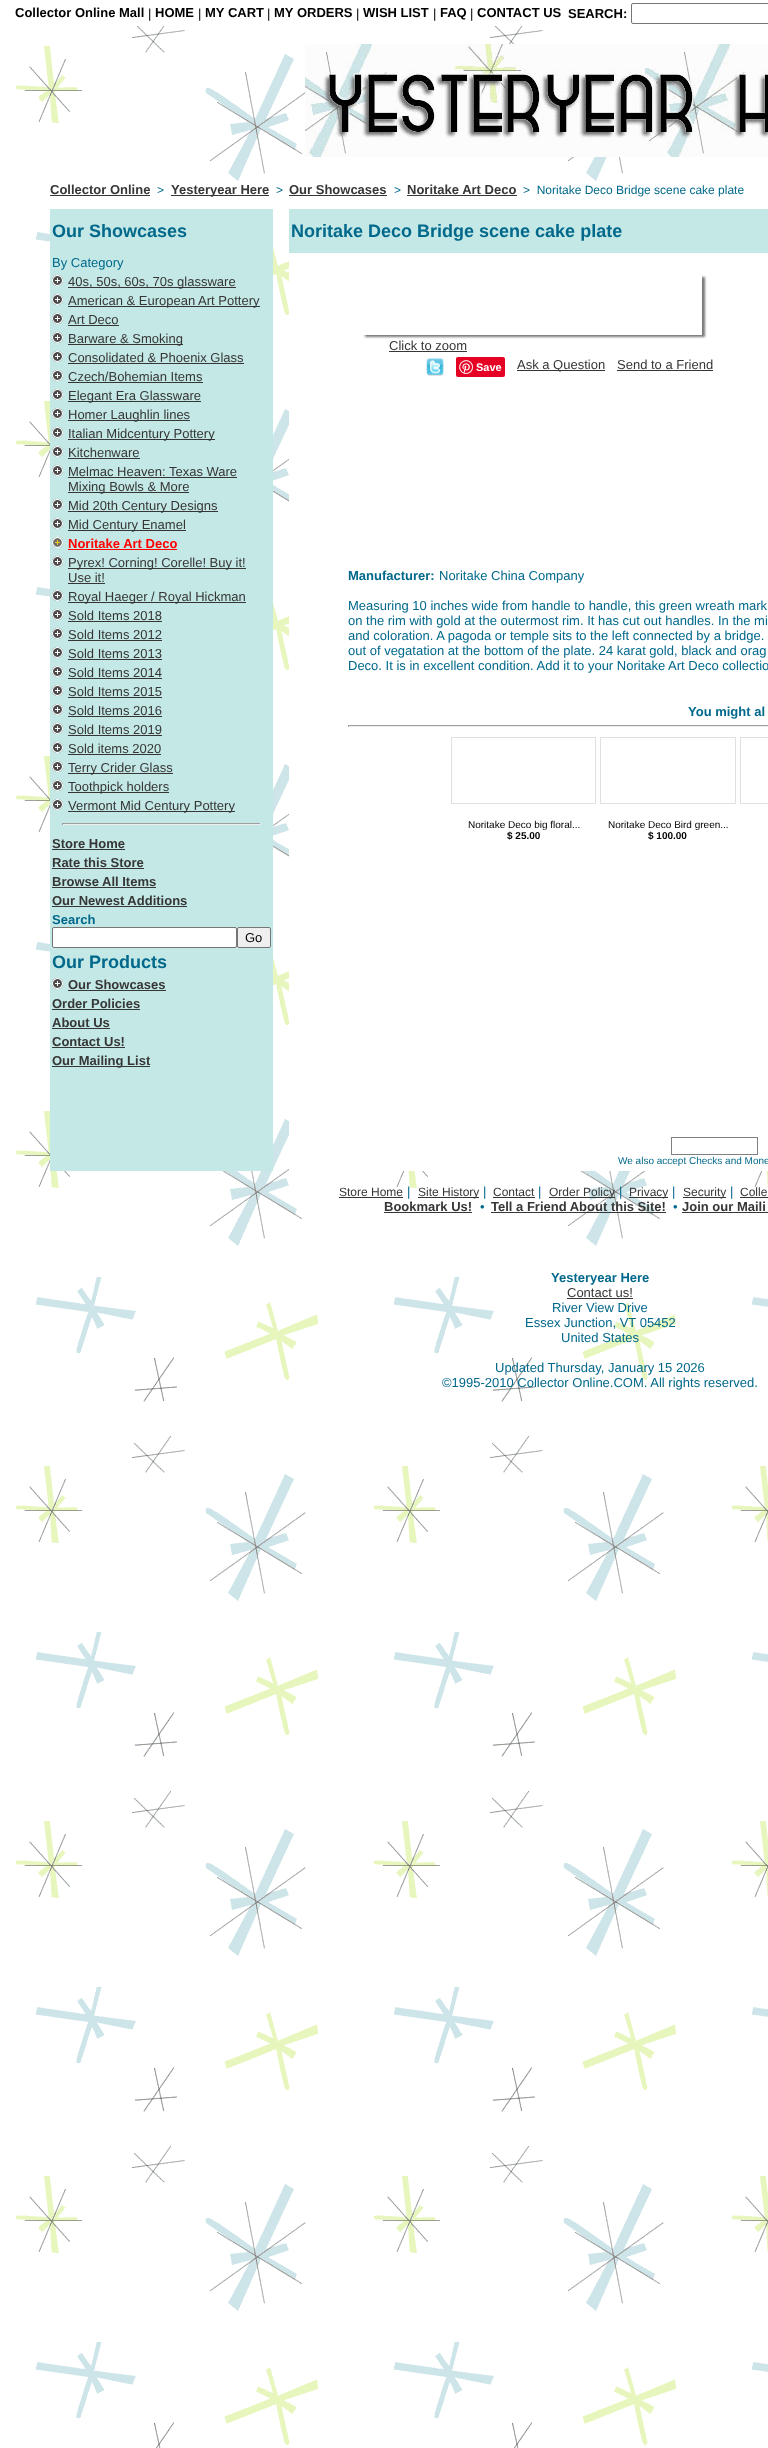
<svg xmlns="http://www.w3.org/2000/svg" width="768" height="2448">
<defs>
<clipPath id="clip1"><path d="M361 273h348v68h-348zm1 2h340v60h-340z" clip-rule="evenodd"/></clipPath>
</defs>
<rect width="100%" height="100%" fill="#fff"/>
<image x="15" y="16" width="753" height="2432" href="media/1.png"/>
<rect x="134" y="23" width="4" height="3" fill="#fff"/>
<text x="15" y="17" style="font-family:Liberation Sans;font-size:13px;font-weight:bold;fill:#000">Collector Online Mall</text>
<text x="148" y="18" style="font-family:Liberation Sans;font-size:13px;fill:#000">|</text>
<rect x="163" y="16" width="8" height="10" fill="#fff"/>
<text x="155" y="17" style="font-family:Liberation Sans;font-size:13px;font-weight:bold;fill:#000">HOME</text>
<text x="198" y="18" style="font-family:Liberation Sans;font-size:13px;fill:#000">|</text>
<text x="205" y="17" style="font-family:Liberation Sans;font-size:13px;font-weight:bold;fill:#000">MY CART</text>
<text x="267" y="18" style="font-family:Liberation Sans;font-size:13px;fill:#000">|</text>
<text x="274" y="17" style="font-family:Liberation Sans;font-size:13px;font-weight:bold;fill:#000">MY ORDERS</text>
<text x="356" y="18" style="font-family:Liberation Sans;font-size:13px;fill:#000">|</text>
<text x="363" y="17" style="font-family:Liberation Sans;font-size:13px;font-weight:bold;fill:#000">WISH LIST</text>
<text x="433" y="18" style="font-family:Liberation Sans;font-size:13px;fill:#000">|</text>
<text x="440" y="17" style="font-family:Liberation Sans;font-size:13px;font-weight:bold;fill:#000">FAQ</text>
<text x="470" y="18" style="font-family:Liberation Sans;font-size:13px;fill:#000">|</text>
<rect x="492" y="16" width="37" height="10" fill="#fff"/>
<text x="477" y="17" style="font-family:Liberation Sans;font-size:13px;font-weight:bold;fill:#000">CONTACT US</text>
<text x="568" y="18" style="font-family:Liberation Sans;font-size:13px;font-weight:bold;fill:#000">SEARCH:</text>
<rect x="631.5" y="3.5" width="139" height="20" rx="1.5" fill="none" stroke="#767676"/>
<image x="305" y="44" width="463" height="113" href="media/2.png"/>
<text x="50" y="194" style="font-family:Liberation Sans;font-size:13px;font-weight:bold;fill:#363636">Collector Online</text>
<rect x="50" y="195" width="100" height="1" fill="#363636"/>
<text x="157" y="194" style="font-family:Liberation Sans;font-size:12px;fill:#00688b">&gt;</text>
<rect x="171" y="195" width="98" height="1" fill="#363636"/>
<text x="171" y="194" style="font-family:Liberation Sans;font-size:13px;font-weight:bold;fill:#363636">Yesteryear Here</text>
<text x="276" y="194" style="font-family:Liberation Sans;font-size:12px;fill:#00688b">&gt;</text>
<text x="289" y="194" style="font-family:Liberation Sans;font-size:13px;font-weight:bold;fill:#363636">Our Showcases</text>
<rect x="289" y="195" width="98" height="1" fill="#363636"/>
<text x="394" y="194" style="font-family:Liberation Sans;font-size:12px;fill:#00688b">&gt;</text>
<text x="407" y="194" style="font-family:Liberation Sans;font-size:13px;font-weight:bold;fill:#363636">Noritake Art Deco</text>
<rect x="407" y="195" width="110" height="1" fill="#363636"/>
<text x="523" y="194" style="font-family:Liberation Sans;font-size:12px;fill:#00688b" xml:space="preserve">&gt;  Noritake Deco Bridge scene cake plate</text>
<rect x="50" y="209" width="223" height="962" fill="#c4e8e6"/>
<text x="52" y="237" style="font-family:Liberation Sans;font-size:18px;font-weight:bold;fill:#00688b">Our Showcases</text>
<text x="52" y="267" style="font-family:Liberation Sans;font-size:13px;fill:#00688b">By Category</text>
<image x="52" y="275" width="11" height="11" href="media/3.png"/>
<rect x="68" y="287" width="168" height="1" fill="#363636"/>
<text x="68" y="286" style="font-family:Liberation Sans;font-size:13px;fill:#363636">40s, 50s, 60s, 70s glassware</text>
<image x="52" y="294" width="11" height="11" href="media/3.png"/>
<rect x="68" y="306" width="192" height="1" fill="#363636"/>
<text x="68" y="305" style="font-family:Liberation Sans;font-size:13px;fill:#363636">American &amp; European Art Pottery</text>
<image x="52" y="313" width="11" height="11" href="media/3.png"/>
<text x="68" y="324" style="font-family:Liberation Sans;font-size:13px;fill:#363636">Art Deco</text>
<rect x="68" y="325" width="51" height="1" fill="#363636"/>
<image x="52" y="332" width="11" height="11" href="media/3.png"/>
<rect x="68" y="344" width="115" height="1" fill="#363636"/>
<text x="68" y="343" style="font-family:Liberation Sans;font-size:13px;fill:#363636">Barware &amp; Smoking</text>
<image x="52" y="351" width="11" height="11" href="media/3.png"/>
<text x="68" y="362" style="font-family:Liberation Sans;font-size:13px;fill:#363636">Consolidated &amp; Phoenix Glass</text>
<rect x="68" y="363" width="176" height="1" fill="#363636"/>
<image x="52" y="370" width="11" height="11" href="media/3.png"/>
<text x="68" y="381" style="font-family:Liberation Sans;font-size:13px;fill:#363636">Czech/Bohemian Items</text>
<rect x="68" y="382" width="135" height="1" fill="#363636"/>
<image x="52" y="389" width="11" height="11" href="media/3.png"/>
<rect x="68" y="401" width="133" height="1" fill="#363636"/>
<text x="68" y="400" style="font-family:Liberation Sans;font-size:13px;fill:#363636">Elegant Era Glassware</text>
<image x="52" y="408" width="11" height="11" href="media/3.png"/>
<rect x="68" y="420" width="122" height="1" fill="#363636"/>
<text x="68" y="419" style="font-family:Liberation Sans;font-size:13px;fill:#363636">Homer Laughlin lines</text>
<image x="52" y="427" width="11" height="11" href="media/3.png"/>
<rect x="68" y="439" width="147" height="1" fill="#363636"/>
<text x="68" y="438" style="font-family:Liberation Sans;font-size:13px;fill:#363636">Italian Midcentury Pottery</text>
<image x="52" y="446" width="11" height="11" href="media/3.png"/>
<text x="68" y="457" style="font-family:Liberation Sans;font-size:13px;fill:#363636">Kitchenware</text>
<rect x="68" y="458" width="72" height="1" fill="#363636"/>
<image x="52" y="465" width="11" height="11" href="media/3.png"/>
<text x="68" y="476" style="font-family:Liberation Sans;font-size:13px;fill:#363636">Melmac Heaven: Texas Ware</text>
<rect x="68" y="477" width="169" height="1" fill="#363636"/>
<rect x="68" y="492" width="121" height="1" fill="#363636"/>
<text x="68" y="491" style="font-family:Liberation Sans;font-size:13px;fill:#363636">Mixing Bowls &amp; More</text>
<image x="52" y="499" width="11" height="11" href="media/3.png"/>
<rect x="68" y="511" width="150" height="1" fill="#363636"/>
<text x="68" y="510" style="font-family:Liberation Sans;font-size:13px;fill:#363636">Mid 20th Century Designs</text>
<image x="52" y="518" width="11" height="11" href="media/3.png"/>
<rect x="68" y="530" width="118" height="1" fill="#363636"/>
<text x="68" y="529" style="font-family:Liberation Sans;font-size:13px;fill:#363636">Mid Century Enamel</text>
<image x="52" y="537" width="11" height="11" href="media/4.png"/>
<text x="68" y="548" style="font-family:Liberation Sans;font-size:13px;font-weight:bold;fill:#f00">Noritake Art Deco</text>
<rect x="68" y="549" width="109" height="1" fill="#f00"/>
<image x="52" y="556" width="11" height="11" href="media/3.png"/>
<rect x="68" y="568" width="178" height="1" fill="#363636"/>
<text x="68" y="567" style="font-family:Liberation Sans;font-size:13px;fill:#363636">Pyrex! Corning! Corelle! Buy it!</text>
<text x="68" y="582" style="font-family:Liberation Sans;font-size:13px;fill:#363636">Use it!</text>
<rect x="68" y="583" width="37" height="1" fill="#363636"/>
<image x="52" y="590" width="11" height="11" href="media/3.png"/>
<rect x="68" y="602" width="178" height="1" fill="#363636"/>
<text x="68" y="601" style="font-family:Liberation Sans;font-size:13px;fill:#363636">Royal Haeger / Royal Hickman</text>
<image x="52" y="609" width="11" height="11" href="media/3.png"/>
<text x="68" y="620" style="font-family:Liberation Sans;font-size:13px;fill:#363636">Sold Items 2018</text>
<rect x="68" y="621" width="94" height="1" fill="#363636"/>
<image x="52" y="628" width="11" height="11" href="media/3.png"/>
<text x="68" y="639" style="font-family:Liberation Sans;font-size:13px;fill:#363636">Sold Items 2012</text>
<rect x="68" y="640" width="94" height="1" fill="#363636"/>
<image x="52" y="647" width="11" height="11" href="media/3.png"/>
<text x="68" y="658" style="font-family:Liberation Sans;font-size:13px;fill:#363636">Sold Items 2013</text>
<rect x="68" y="659" width="94" height="1" fill="#363636"/>
<image x="52" y="666" width="11" height="11" href="media/3.png"/>
<text x="68" y="677" style="font-family:Liberation Sans;font-size:13px;fill:#363636">Sold Items 2014</text>
<rect x="68" y="678" width="94" height="1" fill="#363636"/>
<image x="52" y="685" width="11" height="11" href="media/3.png"/>
<text x="68" y="696" style="font-family:Liberation Sans;font-size:13px;fill:#363636">Sold Items 2015</text>
<rect x="68" y="697" width="94" height="1" fill="#363636"/>
<image x="52" y="704" width="11" height="11" href="media/3.png"/>
<text x="68" y="715" style="font-family:Liberation Sans;font-size:13px;fill:#363636">Sold Items 2016</text>
<rect x="68" y="716" width="94" height="1" fill="#363636"/>
<image x="52" y="723" width="11" height="11" href="media/3.png"/>
<text x="68" y="734" style="font-family:Liberation Sans;font-size:13px;fill:#363636">Sold Items 2019</text>
<rect x="68" y="735" width="94" height="1" fill="#363636"/>
<image x="52" y="742" width="11" height="11" href="media/3.png"/>
<text x="68" y="753" style="font-family:Liberation Sans;font-size:13px;fill:#363636">Sold items 2020</text>
<rect x="68" y="754" width="93" height="1" fill="#363636"/>
<image x="52" y="761" width="11" height="11" href="media/3.png"/>
<rect x="68" y="773" width="105" height="1" fill="#363636"/>
<text x="68" y="772" style="font-family:Liberation Sans;font-size:13px;fill:#363636">Terry Crider Glass</text>
<image x="52" y="780" width="11" height="11" href="media/3.png"/>
<rect x="68" y="792" width="101" height="1" fill="#363636"/>
<text x="68" y="791" style="font-family:Liberation Sans;font-size:13px;fill:#363636">Toothpick holders</text>
<image x="52" y="799" width="11" height="11" href="media/3.png"/>
<rect x="68" y="811" width="167" height="1" fill="#363636"/>
<text x="68" y="810" style="font-family:Liberation Sans;font-size:13px;fill:#363636">Vermont Mid Century Pottery</text>
<rect x="62" y="823" width="199" height="1" fill="#9f9f9f"/>
<rect x="260" y="823" width="1" height="2" fill="#eee"/>
<rect x="62" y="824" width="199" height="1" fill="#eee"/>
<rect x="62" y="823" width="1" height="2" fill="#9f9f9f"/>
<text x="52" y="848" style="font-family:Liberation Sans;font-size:13px;font-weight:bold;fill:#363636">Store Home</text>
<rect x="52" y="849" width="73" height="1" fill="#363636"/>
<text x="52" y="867" style="font-family:Liberation Sans;font-size:13px;font-weight:bold;fill:#363636">Rate this Store</text>
<rect x="52" y="868" width="92" height="1" fill="#363636"/>
<text x="52" y="886" style="font-family:Liberation Sans;font-size:13px;font-weight:bold;fill:#363636">Browse</text>
<rect x="52" y="887" width="104" height="1" fill="#363636"/>
<text x="102" y="886" style="font-family:Liberation Sans;font-size:13px;font-weight:bold;fill:#363636">All Items</text>
<text x="52" y="905" style="font-family:Liberation Sans;font-size:13px;font-weight:bold;fill:#363636">Our Newest Additions</text>
<rect x="52" y="906" width="135" height="1" fill="#363636"/>
<text x="52" y="924" style="font-family:Liberation Sans;font-size:13px;font-weight:bold;fill:#00688b">Search</text>
<rect x="52.5" y="927.5" width="184" height="20" rx="1.5" fill="#fff" stroke="#767676"/>
<rect x="237.5" y="927.5" width="33" height="20" rx="1.5" fill="#efefef" stroke="#767676"/>
<text x="245" y="942" style="font-family:Liberation Sans;font-size:13px;fill:#000">Go</text>
<text x="52" y="968" style="font-family:Liberation Sans;font-size:18px;font-weight:bold;fill:#00688b">Our Products</text>
<image x="52" y="978" width="11" height="11" href="media/3.png"/>
<text x="68" y="989" style="font-family:Liberation Sans;font-size:13px;font-weight:bold;fill:#363636">Our Showcases</text>
<rect x="68" y="990" width="98" height="1" fill="#363636"/>
<text x="52" y="1008" style="font-family:Liberation Sans;font-size:13px;font-weight:bold;fill:#363636">Order Policies</text>
<rect x="52" y="1009" width="88" height="1" fill="#363636"/>
<text x="52" y="1027" style="font-family:Liberation Sans;font-size:13px;font-weight:bold;fill:#363636">About Us</text>
<rect x="52" y="1028" width="58" height="1" fill="#363636"/>
<text x="52" y="1046" style="font-family:Liberation Sans;font-size:13px;font-weight:bold;fill:#363636">Contact Us!</text>
<rect x="52" y="1047" width="73" height="1" fill="#363636"/>
<rect x="52" y="1066" width="98" height="1" fill="#363636"/>
<text x="52" y="1065" style="font-family:Liberation Sans;font-size:13px;font-weight:bold;fill:#363636">Our Mailing List</text>
<rect x="289" y="253" width="479" height="918" fill="#fff"/>
<rect x="289" y="209" width="479" height="44" fill="#c4e8e6"/>
<text x="291" y="237" style="font-family:Liberation Sans;font-size:18px;font-weight:bold;fill:#00688b">Noritake Deco Bridge scene cake plate</text>
<g clip-path="url(#clip1)">
<rect x="365" y="277" width="340" height="60" fill="#7a7a7a" filter="blur(1px)"/>
</g>
<text x="389" y="350" style="font-family:Liberation Sans;font-size:13px;fill:#363636">Click to zoom</text>
<rect x="389" y="351" width="78" height="1" fill="#363636"/>
<image x="426" y="358" width="18" height="18" href="media/5.png"/>
<rect x="456" y="357" width="49" height="20" rx="2" fill="#e60023"/>
<image x="459" y="360" width="14" height="14" href="media/6.png"/>
<text x="476" y="371" style="font-family:Liberation Sans;font-size:11px;font-weight:bold;fill:#fff">Save</text>
<rect x="517" y="370" width="88" height="1" fill="#363636"/>
<text x="517" y="369" style="font-family:Liberation Sans;font-size:13px;fill:#363636">Ask a Question</text>
<text x="617" y="369" style="font-family:Liberation Sans;font-size:13px;fill:#363636">Send to a Friend</text>
<rect x="617" y="370" width="96" height="1" fill="#363636"/>
<text x="348" y="580" style="font-family:Liberation Sans;font-size:13px;font-weight:bold;fill:#00688b">Manufacturer:</text>
<text x="439" y="580" style="font-family:Liberation Sans;font-size:13px;fill:#00688b">Noritake China Company</text>
<text x="348" y="610" style="font-family:Liberation Sans;font-size:13px;fill:#00688b">Measuring 10 inches wide from handle to handle, this green wreath mark</text>
<text x="348" y="625" style="font-family:Liberation Sans;font-size:13px;fill:#00688b">on the rim with gold at the outermost rim. It has cut out handles. In the mi</text>
<text x="348" y="640" style="font-family:Liberation Sans;font-size:13px;fill:#00688b">and coloration. A pagoda or temple sits to the left connected by a bridge.</text>
<text x="348" y="655" style="font-family:Liberation Sans;font-size:13px;fill:#00688b">out of vegatation at the bottom of the plate. 24 karat gold, black and orag</text>
<text x="348" y="670" style="font-family:Liberation Sans;font-size:13px;fill:#00688b">Deco. It is in excellent condition. Add it to your Noritake Art Deco collectio</text>
<text x="688" y="716" style="font-family:Liberation Sans;font-size:13px;font-weight:bold;fill:#00688b">You might al</text>
<rect x="348" y="725" width="420" height="1" fill="#9f9f9f"/>
<rect x="348" y="726" width="420" height="1" fill="#eee"/>
<rect x="348" y="725" width="1" height="2" fill="#9f9f9f"/>
<rect x="740" y="737" width="28" height="1" fill="#e0e0e0"/>
<rect x="740" y="803" width="28" height="1" fill="#e0e0e0"/>
<rect x="740" y="737" width="1" height="67" fill="#e0e0e0"/>
<rect x="451" y="737" width="145" height="1" fill="#e0e0e0"/>
<rect x="595" y="737" width="1" height="67" fill="#e0e0e0"/>
<rect x="451" y="803" width="145" height="1" fill="#e0e0e0"/>
<rect x="451" y="737" width="1" height="67" fill="#e0e0e0"/>
<text x="468" y="828" style="font-family:Liberation Sans;font-size:10px;fill:#000">Noritake Deco big floral...</text>
<text x="507" y="839" style="font-family:Liberation Sans;font-size:10px;font-weight:bold;fill:#000">$ 25.00</text>
<rect x="600" y="737" width="136" height="1" fill="#e0e0e0"/>
<rect x="735" y="737" width="1" height="67" fill="#e0e0e0"/>
<rect x="600" y="803" width="136" height="1" fill="#e0e0e0"/>
<rect x="600" y="737" width="1" height="67" fill="#e0e0e0"/>
<text x="608" y="828" style="font-family:Liberation Sans;font-size:10px;fill:#000">Noritake Deco Bird green...</text>
<text x="648" y="839" style="font-family:Liberation Sans;font-size:10px;font-weight:bold;fill:#000">$ 100.00</text>
<rect x="671" y="1137" width="87" height="1" fill="#808080"/>
<rect x="757" y="1137" width="1" height="18" fill="#808080"/>
<rect x="671" y="1154" width="87" height="1" fill="#808080"/>
<rect x="671" y="1137" width="1" height="18" fill="#808080"/>
<text x="618" y="1164" style="font-family:Liberation Sans;font-size:10px;fill:#00688b">We also accept Checks and Mone</text>
<text x="339" y="1196" style="font-family:Liberation Sans;font-size:12px;fill:#363636">Store Home</text>
<rect x="339" y="1197" width="64" height="1" fill="#363636"/>
<text x="407" y="1196" style="font-family:Liberation Sans;font-size:13px;fill:#00688b">|</text>
<rect x="418" y="1197" width="61" height="1" fill="#363636"/>
<text x="418" y="1196" style="font-family:Liberation Sans;font-size:12px;fill:#363636">Site History</text>
<text x="483" y="1196" style="font-family:Liberation Sans;font-size:13px;fill:#00688b">|</text>
<text x="493" y="1196" style="font-family:Liberation Sans;font-size:12px;fill:#363636">Contact</text>
<rect x="493" y="1197" width="42" height="1" fill="#363636"/>
<text x="538" y="1196" style="font-family:Liberation Sans;font-size:13px;fill:#00688b">|</text>
<rect x="549" y="1197" width="66" height="1" fill="#363636"/>
<text x="549" y="1196" style="font-family:Liberation Sans;font-size:12px;fill:#363636">Order Policy</text>
<text x="619" y="1196" style="font-family:Liberation Sans;font-size:13px;fill:#00688b">|</text>
<rect x="629" y="1197" width="39" height="1" fill="#363636"/>
<text x="629" y="1196" style="font-family:Liberation Sans;font-size:12px;fill:#363636">Privacy</text>
<text x="672" y="1196" style="font-family:Liberation Sans;font-size:13px;fill:#00688b">|</text>
<rect x="683" y="1197" width="43" height="1" fill="#363636"/>
<text x="683" y="1196" style="font-family:Liberation Sans;font-size:12px;fill:#363636">Security</text>
<text x="730" y="1196" style="font-family:Liberation Sans;font-size:13px;fill:#00688b">|</text>
<text x="740" y="1196" style="font-family:Liberation Sans;font-size:12px;fill:#363636">Colle</text>
<rect x="740" y="1197" width="28" height="1" fill="#363636"/>
<text x="384" y="1211" style="font-family:Liberation Sans;font-size:13px;font-weight:bold;fill:#363636">Bookmark Us!</text>
<rect x="384" y="1212" width="88" height="1" fill="#363636"/>
<text x="480" y="1211" style="font-family:Liberation Sans;font-size:13px;fill:#00688b">•</text>
<text x="491" y="1211" style="font-family:Liberation Sans;font-size:13px;font-weight:bold;fill:#363636">Tell a Friend About this Site!</text>
<rect x="491" y="1212" width="175" height="1" fill="#363636"/>
<text x="673" y="1211" style="font-family:Liberation Sans;font-size:13px;fill:#00688b">•</text>
<text x="682" y="1211" style="font-family:Liberation Sans;font-size:13px;font-weight:bold;fill:#363636">Join our Maili</text>
<rect x="682" y="1212" width="86" height="1" fill="#363636"/>
<text x="551" y="1282" style="font-family:Liberation Sans;font-size:13px;font-weight:bold;fill:#00688b">Yesteryear Here</text>
<text x="567" y="1297" style="font-family:Liberation Sans;font-size:13px;fill:#363636">Contact us!</text>
<rect x="567" y="1298" width="66" height="1" fill="#363636"/>
<text x="552" y="1312" style="font-family:Liberation Sans;font-size:13px;fill:#00688b">River View Drive</text>
<text x="525" y="1327" style="font-family:Liberation Sans;font-size:13px;fill:#00688b">Essex Junction, VT 05452</text>
<text x="561" y="1342" style="font-family:Liberation Sans;font-size:13px;fill:#00688b">United States</text>
<text x="495" y="1372" style="font-family:Liberation Sans;font-size:13px;fill:#00688b">Updated Thursday, January 15 2026</text>
<text x="442" y="1387" style="font-family:Liberation Sans;font-size:13px;fill:#00688b">©1995-2010 Collector Online.COM. All rights reserved.</text>
</svg>
